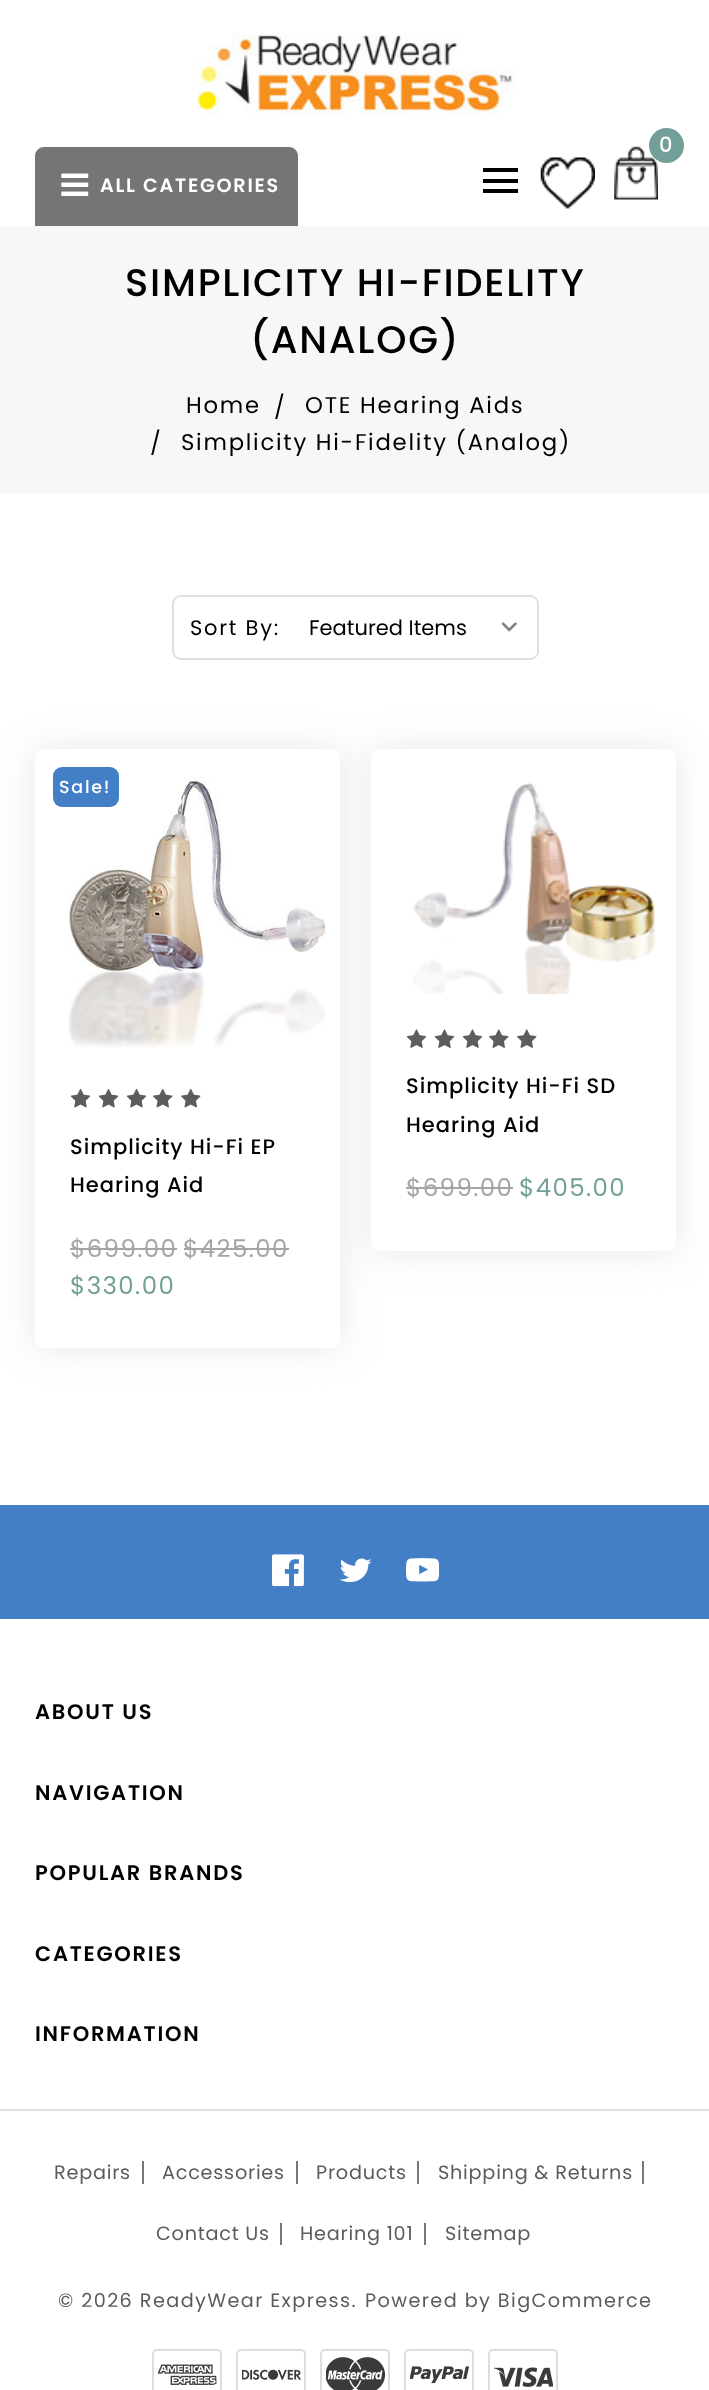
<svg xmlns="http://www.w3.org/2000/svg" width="709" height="2390">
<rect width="100%" height="100%" fill="#fff"/>
<image x="197" y="33" width="318" height="81" href="media/1.png"/>
<image x="614" y="146" width="44" height="54" href="media/2.png"/>
<circle cx="666.5" cy="145.5" r="17.5" fill="#729f98"/>
<text x="659" y="152" style="font-family:Poppins;font-size:21px;font-weight:500;letter-spacing:1.4px;fill:#fff">0</text>
<image x="540" y="157" width="55" height="52" href="media/3.png"/>
<rect x="483" y="179" width="35" height="4" fill="#000"/>
<rect x="483" y="168" width="35" height="4" fill="#000"/>
<rect x="483" y="189" width="35" height="4" fill="#000"/>
<path d="M44 147h245c5 0 9 4 9 9v70h-263v-70c0-5 4-9 9-9z" fill="#757575"/>
<image x="61" y="173" width="28" height="23" href="media/4.png"/>
<text x="100" y="192" style="font-family:Poppins;font-size:19.25px;font-weight:600;letter-spacing:1.75px;fill:#fff">ALL CATEGORIES</text>
<rect y="226" width="709" height="268" fill="#f7f7f7"/>
<text x="125" y="296" style="font-family:Poppins;font-size:38.5px;font-weight:500;letter-spacing:1.75px;fill:#000">SIMPLICITY HI-FIDELITY</text>
<text x="250" y="353" style="font-family:Poppins;font-size:38.5px;font-weight:500;letter-spacing:1.75px;fill:#000">(ANALOG)</text>
<text x="186" y="413" style="font-family:Poppins;font-size:22.75px;letter-spacing:1.75px;fill:#000">Home</text>
<text x="274" y="415" style="font-family:Poppins;font-size:22.75px;letter-spacing:1.75px;fill:#000">/</text>
<text x="305" y="413" style="font-family:Poppins;font-size:22.75px;letter-spacing:1.75px;fill:#000">OTE Hearing Aids</text>
<text x="150" y="451" style="font-family:Poppins;font-size:22.75px;letter-spacing:1.75px;fill:#000">/</text>
<text x="181" y="450" style="font-family:Poppins;font-size:22.75px;letter-spacing:1.75px;fill:#000">Simplicity Hi-Fidelity (Analog)</text>
<rect x="173" y="596" width="365" height="63" rx="8" fill="none" stroke="#dfdfdf" stroke-width="2"/>
<text x="190" y="635" style="font-family:Poppins;font-size:21px;letter-spacing:1.75px;fill:#000">Sort By:</text>
<path d="M305 597h225c4 0 7 3 7 7v47c0 4-3 7-7 7h-225z" fill="#fff"/>
<image x="501" y="622" width="16" height="10" href="media/5.png"/>
<text x="309" y="635" style="font-family:Poppins;font-size:21px;fill:#000">Featured Items</text>
<rect x="32" y="746" width="311" height="605" rx="12" fill="#ebebeb" filter="blur(17.5px)"/>
<rect x="368" y="746" width="311" height="509" rx="12" fill="#ebebeb" filter="blur(17.5px)"/>
<path d="M44 749h287c5 0 9 4 9 9v296h-305v-296c0-5 4-9 9-9z" fill="#fff"/>
<image x="68" y="776" width="258" height="272" href="media/6.png"/>
<rect x="53" y="767" width="66" height="40" rx="9" fill="#437fc7"/>
<text x="59" y="793" style="font-family:Poppins;font-size:17.5px;font-weight:500;letter-spacing:1.75px;fill:#fff">Sale!</text>
<path d="M35 1054h305v285c0 5-4 9-9 9h-287c-5 0-9-4-9-9z" fill="#fff"/>
<image x="70" y="1089" width="21" height="19" href="media/7.png"/>
<image x="98" y="1089" width="21" height="19" href="media/7.png"/>
<image x="126" y="1089" width="21" height="19" href="media/7.png"/>
<image x="153" y="1089" width="20" height="19" href="media/8.png"/>
<image x="181" y="1089" width="20" height="19" href="media/8.png"/>
<text x="70" y="1154" style="font-family:Poppins;font-size:21px;font-weight:500;letter-spacing:1px;fill:#000">Simplicity Hi-Fi EP</text>
<text x="70" y="1192" style="font-family:Poppins;font-size:21px;font-weight:500;letter-spacing:1px;fill:#000">Hearing Aid</text>
<text x="70" y="1257" style="font-family:Poppins;font-size:24.5px;letter-spacing:1.4px;fill:#a5a5a5">$699.00</text>
<rect x="70" y="1248" width="107" height="2" fill="#a5a5a5"/>
<text x="183" y="1257" style="font-family:Poppins;font-size:24.5px;letter-spacing:1.4px;fill:#a5a5a5">$425.00</text>
<rect x="184" y="1248" width="105" height="2" fill="#a5a5a5"/>
<text x="70" y="1294" style="font-family:Poppins;font-size:24.5px;letter-spacing:1.4px;fill:#729f98">$330.00</text>
<path d="M380 749h287c5 0 9 4 9 9v236h-305v-236c0-5 4-9 9-9z" fill="#fff"/>
<image x="413" y="782" width="243" height="212" href="media/9.png"/>
<path d="M371 994h305v248c0 5-4 9-9 9h-287c-5 0-9-4-9-9z" fill="#fff"/>
<image x="406" y="1029" width="21" height="19" href="media/10.png"/>
<image x="434" y="1029" width="21" height="19" href="media/10.png"/>
<image x="462" y="1029" width="21" height="19" href="media/10.png"/>
<image x="489" y="1029" width="20" height="19" href="media/11.png"/>
<image x="517" y="1029" width="20" height="19" href="media/11.png"/>
<text x="406" y="1093" style="font-family:Poppins;font-size:21px;font-weight:500;letter-spacing:1px;fill:#000">Simplicity Hi-Fi SD</text>
<text x="406" y="1132" style="font-family:Poppins;font-size:21px;font-weight:500;letter-spacing:1px;fill:#000">Hearing Aid</text>
<text x="406" y="1196" style="font-family:Poppins;font-size:24.5px;letter-spacing:1.4px;fill:#a5a5a5">$699.00</text>
<rect x="406" y="1187" width="107" height="2" fill="#a5a5a5"/>
<text x="519" y="1196" style="font-family:Poppins;font-size:24.5px;letter-spacing:1.4px;fill:#729f98">$405.00</text>
<rect y="1505" width="709" height="114" fill="#437fc7"/>
<image x="272" y="1554" width="32" height="33" href="media/12.png"/>
<image x="340" y="1558" width="31" height="25" href="media/13.png"/>
<image x="406" y="1558" width="33" height="24" href="media/14.png"/>
<text x="35" y="1719" style="font-family:Poppins;font-size:21px;font-weight:600;letter-spacing:1.75px;fill:#000">ABOUT US</text>
<text x="35" y="1800" style="font-family:Poppins;font-size:21px;font-weight:600;letter-spacing:1.75px;fill:#000">NAVIGATION</text>
<text x="35" y="1880" style="font-family:Poppins;font-size:21px;font-weight:600;letter-spacing:1.75px;fill:#000">POPULAR BRANDS</text>
<text x="35" y="1961" style="font-family:Poppins;font-size:21px;font-weight:600;letter-spacing:1.75px;fill:#000">CATEGORIES</text>
<text x="35" y="2041" style="font-family:Poppins;font-size:21px;font-weight:600;letter-spacing:1.75px;fill:#000">INFORMATION</text>
<rect y="2109" width="709" height="2" fill="#e1e1e1"/>
<text x="54" y="2179" style="font-family:Poppins;font-size:19.25px;letter-spacing:0.75px;fill:#5b5b5b">Repairs</text>
<rect x="142" y="2161" width="2" height="23" fill="#787878"/>
<text x="162" y="2179" style="font-family:Poppins;font-size:19.25px;letter-spacing:0.75px;fill:#5b5b5b">Accessories</text>
<rect x="296" y="2161" width="2" height="23" fill="#787878"/>
<text x="316" y="2179" style="font-family:Poppins;font-size:19.25px;letter-spacing:0.75px;fill:#5b5b5b">Products</text>
<rect x="417" y="2161" width="2" height="23" fill="#787878"/>
<text x="438" y="2179" style="font-family:Poppins;font-size:19.25px;letter-spacing:0.75px;fill:#5b5b5b">Shipping &amp; Returns</text>
<rect x="642" y="2161" width="2" height="23" fill="#787878"/>
<text x="156" y="2240" style="font-family:Poppins;font-size:19.25px;letter-spacing:0.75px;fill:#5b5b5b">Contact Us</text>
<rect x="280" y="2223" width="2" height="22" fill="#787878"/>
<text x="300" y="2240" style="font-family:Poppins;font-size:19.25px;letter-spacing:0.75px;fill:#5b5b5b">Hearing 101</text>
<rect x="424" y="2223" width="2" height="22" fill="#787878"/>
<text x="445" y="2240" style="font-family:Poppins;font-size:19.25px;letter-spacing:0.75px;fill:#5b5b5b">Sitemap</text>
<text x="58" y="2307" style="font-family:Poppins;font-size:19.25px;letter-spacing:1.4px;fill:#5b5b5b">© 2026 ReadyWear Express.</text>
<text x="365" y="2307" style="font-family:Poppins;font-size:19.25px;letter-spacing:1.4px;fill:#5b5b5b">Powered by BigCommerce</text>
<rect x="153" y="2350" width="68" height="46" rx="4" fill="none" stroke="#ddd" stroke-width="2"/>
<rect x="237" y="2350" width="68" height="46" rx="4" fill="none" stroke="#ddd" stroke-width="2"/>
<rect x="321" y="2350" width="68" height="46" rx="4" fill="none" stroke="#ddd" stroke-width="2"/>
<rect x="405" y="2350" width="68" height="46" rx="4" fill="none" stroke="#ddd" stroke-width="2"/>
<rect x="489" y="2350" width="68" height="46" rx="4" fill="none" stroke="#ddd" stroke-width="2"/>
<image x="158" y="2364" width="59" height="21" href="media/15.png"/>
<image x="242" y="2369" width="59" height="11" href="media/16.png"/>
<image x="326" y="2357" width="59" height="33" href="media/17.png"/>
<image x="410" y="2366" width="59" height="18" href="media/18.png"/>
<image x="494" y="2367" width="59" height="20" href="media/19.png"/>
</svg>
